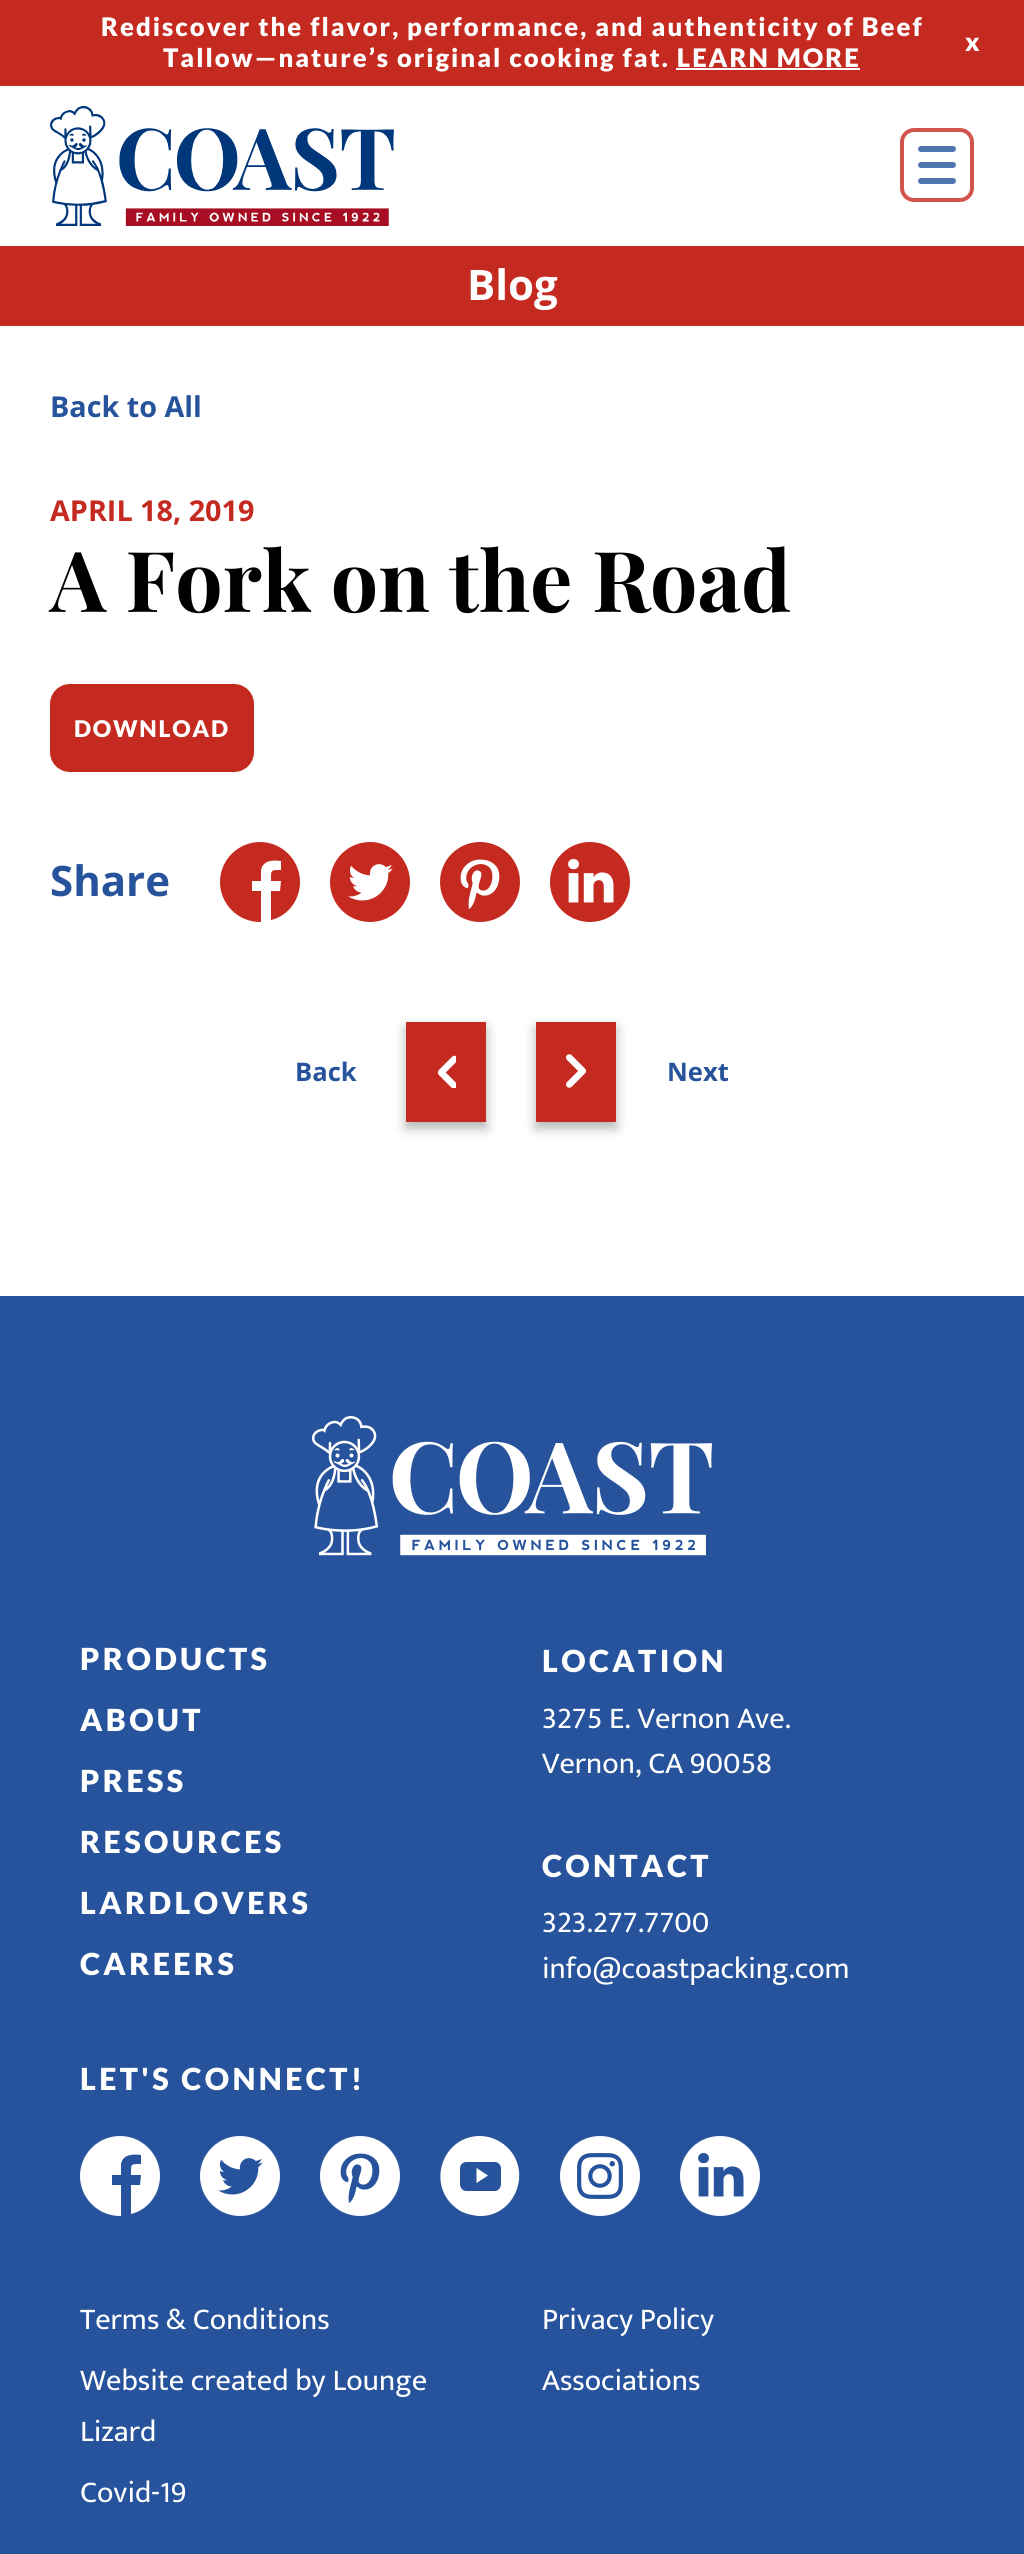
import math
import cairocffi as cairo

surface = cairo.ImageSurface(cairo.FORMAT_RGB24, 1024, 2554)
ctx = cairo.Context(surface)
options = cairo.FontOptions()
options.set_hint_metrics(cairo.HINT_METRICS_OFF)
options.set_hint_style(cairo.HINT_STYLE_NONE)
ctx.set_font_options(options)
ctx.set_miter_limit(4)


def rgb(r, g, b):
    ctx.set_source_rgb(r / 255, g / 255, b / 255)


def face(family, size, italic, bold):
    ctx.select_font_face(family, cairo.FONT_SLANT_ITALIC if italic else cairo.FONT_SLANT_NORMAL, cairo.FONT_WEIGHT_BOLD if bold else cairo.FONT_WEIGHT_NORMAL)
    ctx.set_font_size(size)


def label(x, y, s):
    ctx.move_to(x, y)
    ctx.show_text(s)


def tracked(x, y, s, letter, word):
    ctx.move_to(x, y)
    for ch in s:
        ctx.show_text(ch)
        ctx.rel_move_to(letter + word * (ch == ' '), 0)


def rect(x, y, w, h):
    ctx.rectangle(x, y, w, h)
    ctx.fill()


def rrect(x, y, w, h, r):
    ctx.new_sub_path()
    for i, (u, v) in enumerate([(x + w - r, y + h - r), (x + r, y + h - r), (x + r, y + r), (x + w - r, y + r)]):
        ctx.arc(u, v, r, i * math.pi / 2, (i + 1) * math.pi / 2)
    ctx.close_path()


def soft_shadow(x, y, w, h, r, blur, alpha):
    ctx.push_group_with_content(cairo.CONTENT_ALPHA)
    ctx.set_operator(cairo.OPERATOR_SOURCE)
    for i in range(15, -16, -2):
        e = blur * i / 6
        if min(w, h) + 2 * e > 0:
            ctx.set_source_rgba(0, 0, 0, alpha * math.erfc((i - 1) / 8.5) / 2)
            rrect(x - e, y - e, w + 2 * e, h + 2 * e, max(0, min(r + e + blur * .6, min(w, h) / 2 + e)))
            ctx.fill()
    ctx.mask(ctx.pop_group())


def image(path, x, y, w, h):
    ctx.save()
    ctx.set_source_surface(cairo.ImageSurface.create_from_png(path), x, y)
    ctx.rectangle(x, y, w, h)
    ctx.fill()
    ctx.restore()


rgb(255, 255, 255)
ctx.paint()
rgb(197, 42, 33)
rect(0, 0, 1024, 86)
face('Lato Black', 25.6, 0, 0)
rgb(255, 255, 255)
tracked(101, 36, 'Rediscover the flavor, performance, and authenticity of Beef', 2, 0)
tracked(163, 67, 'Tallow—nature’s original cooking fat. LEARN MORE', 2, 0)
rect(676, 68, 184, 2)
tracked(965, 51, 'x', 2, 0)
image('image0.png', 50, 106, 344, 120)
rrect(902, 130, 70, 70, 12)
rgb(209, 85, 77)
ctx.set_line_width(4)
ctx.stroke()
rgb(81, 117, 176)
rrect(918, 146, 38, 6, 3)
ctx.fill()
rrect(918, 162, 38, 6, 3)
ctx.fill()
rrect(918, 178, 38, 6, 3)
ctx.fill()
rgb(197, 42, 33)
rect(0, 246, 1024, 80)
face('Open Sans', 42, 0, 1)
rgb(255, 255, 255)
label(467, 300, 'Blog')
face('Open Sans', 28.75, 0, 1)
rgb(38, 83, 156)
label(50, 417, 'Back to All')
rgb(197, 42, 33)
label(50, 521, 'APRIL 18, 2019')
face('Playfair Display', 84, 0, 1)
rgb(0, 0, 0)
label(50, 612, 'A Fork on the Road')
rgb(197, 42, 33)
rrect(53, 687, 198, 82, 17)
ctx.fill_preserve()
ctx.set_line_width(6)
ctx.stroke()
face('Lato Black', 23, 0, 0)
rgb(255, 255, 255)
tracked(74, 737, 'DOWNLOAD', 1.75, 0)
face('Open Sans', 42, 0, 1)
rgb(38, 83, 156)
label(50, 896, 'Share')
rgb(197, 42, 33)
ctx.new_path()
ctx.move_to(300, 882)
ctx.curve_to(300, 860, 282, 842, 260, 842)
ctx.curve_to(238, 842, 220, 860, 220, 882)
ctx.curve_to(220, 904, 238, 922, 260, 922)
ctx.line_to(261, 922)
ctx.line_to(261, 891)
ctx.line_to(252, 891)
ctx.line_to(252, 881)
ctx.line_to(261, 881)
ctx.line_to(261, 870)
ctx.curve_to(263, 860, 273, 860, 281, 861)
ctx.line_to(281, 870)
ctx.curve_to(270, 870, 271, 870, 271, 881)
ctx.line_to(281, 881)
ctx.line_to(280, 891)
ctx.line_to(271, 891)
ctx.line_to(271, 920)
ctx.curve_to(288, 916, 300, 900, 300, 882)
ctx.close_path()
ctx.fill()
image('image1.png', 330, 842, 80, 80)
image('image2.png', 440, 842, 80, 80)
image('image3.png', 550, 842, 80, 80)
face('Open Sans', 25.6, 0, 1)
rgb(38, 83, 156)
label(295, 1081, 'Back')
rgb(0, 0, 0)
soft_shadow(406, 1028, 80, 100, 0, 6, 0.3)
rgb(197, 42, 33)
rect(406, 1022, 80, 100)
image('image4.png', 437, 1055, 19, 33)
rgb(0, 0, 0)
soft_shadow(536, 1028, 80, 100, 0, 6, 0.3)
rgb(197, 42, 33)
rect(536, 1022, 80, 100)
image('image5.png', 566, 1054, 20, 34)
rgb(38, 83, 156)
label(667, 1081, 'Next')
rect(0, 1296, 1024, 1258)
image('image6.png', 312, 1416, 400, 140)
face('Lato Black', 30.4, 0, 0)
rgb(255, 255, 255)
tracked(80, 1670, 'PRODUCTS', 3.4, 0)
tracked(80, 1731, 'ABOUT', 3.4, 0)
tracked(80, 1792, 'PRESS', 3.4, 0)
tracked(80, 1853, 'RESOURCES', 3.4, 0)
tracked(80, 1914, 'LARDLOVERS', 3.4, 0)
tracked(80, 1975, 'CAREERS', 3.4, 0)
tracked(542, 1672, 'LOCATION', 3.4, 0)
face('Mukta', 30.4, 0, 0)
label(542, 1728, '3275 E. Vernon Ave.')
label(542, 1773, 'Vernon, CA 90058')
face('Lato Black', 30.4, 0, 0)
tracked(542, 1877, 'CONTACT', 3.4, 0)
face('Mukta', 30.4, 0, 0)
label(542, 1932, '323.277.7700')
label(542, 1978, 'info@coastpacking.com')
face('Lato Black', 30.4, 0, 0)
tracked(80, 2090, 'LET\'S CONNECT!', 3.4, 0)
ctx.new_path()
ctx.move_to(160, 2176)
ctx.curve_to(160, 2154, 142, 2136, 120, 2136)
ctx.curve_to(98, 2136, 80, 2154, 80, 2176)
ctx.curve_to(80, 2198, 98, 2216, 120, 2216)
ctx.line_to(121, 2216)
ctx.line_to(121, 2185)
ctx.line_to(112, 2185)
ctx.line_to(112, 2175)
ctx.line_to(121, 2175)
ctx.line_to(121, 2164)
ctx.curve_to(123, 2154, 133, 2154, 141, 2155)
ctx.line_to(141, 2164)
ctx.curve_to(130, 2164, 131, 2164, 131, 2175)
ctx.line_to(141, 2175)
ctx.line_to(140, 2185)
ctx.line_to(131, 2185)
ctx.line_to(131, 2214)
ctx.curve_to(148, 2210, 160, 2194, 160, 2176)
ctx.close_path()
ctx.fill()
image('image7.png', 200, 2136, 80, 80)
image('image8.png', 320, 2136, 80, 80)
ctx.new_path()
ctx.move_to(476.5, 2183)
ctx.line_to(488, 2175.5)
ctx.line_to(476.5, 2168)
ctx.close_path()
ctx.fill()
ctx.new_path()
ctx.move_to(480, 2136)
ctx.curve_to(442, 2136, 426, 2185, 456, 2208)
ctx.curve_to(462, 2213, 470, 2215, 478, 2216)
ctx.curve_to(517, 2218, 535, 2166, 502, 2143)
ctx.curve_to(496, 2139, 488, 2136, 480, 2136)
ctx.move_to(501, 2168)
ctx.line_to(501, 2184)
ctx.curve_to(501, 2188, 498, 2191, 495, 2191)
ctx.line_to(466, 2191)
ctx.curve_to(463, 2191, 460, 2188, 460, 2184)
ctx.line_to(460, 2168)
ctx.curve_to(460, 2165, 463, 2162, 466, 2162)
ctx.line_to(495, 2162)
ctx.curve_to(498, 2162, 501, 2165, 501, 2168)
ctx.close_path()
ctx.fill()
image('image9.png', 560, 2136, 80, 80)
image('image10.png', 680, 2136, 80, 80)
face('Mukta', 30.4, 0, 0)
label(80, 2329, 'Terms & Conditions')
label(542, 2329, 'Privacy Policy')
label(80, 2390, 'Website created by Lounge')
label(80, 2441, 'Lizard')
label(542, 2390, 'Associations')
label(80, 2502, 'Covid-19')
surface.write_to_png('render.png')
